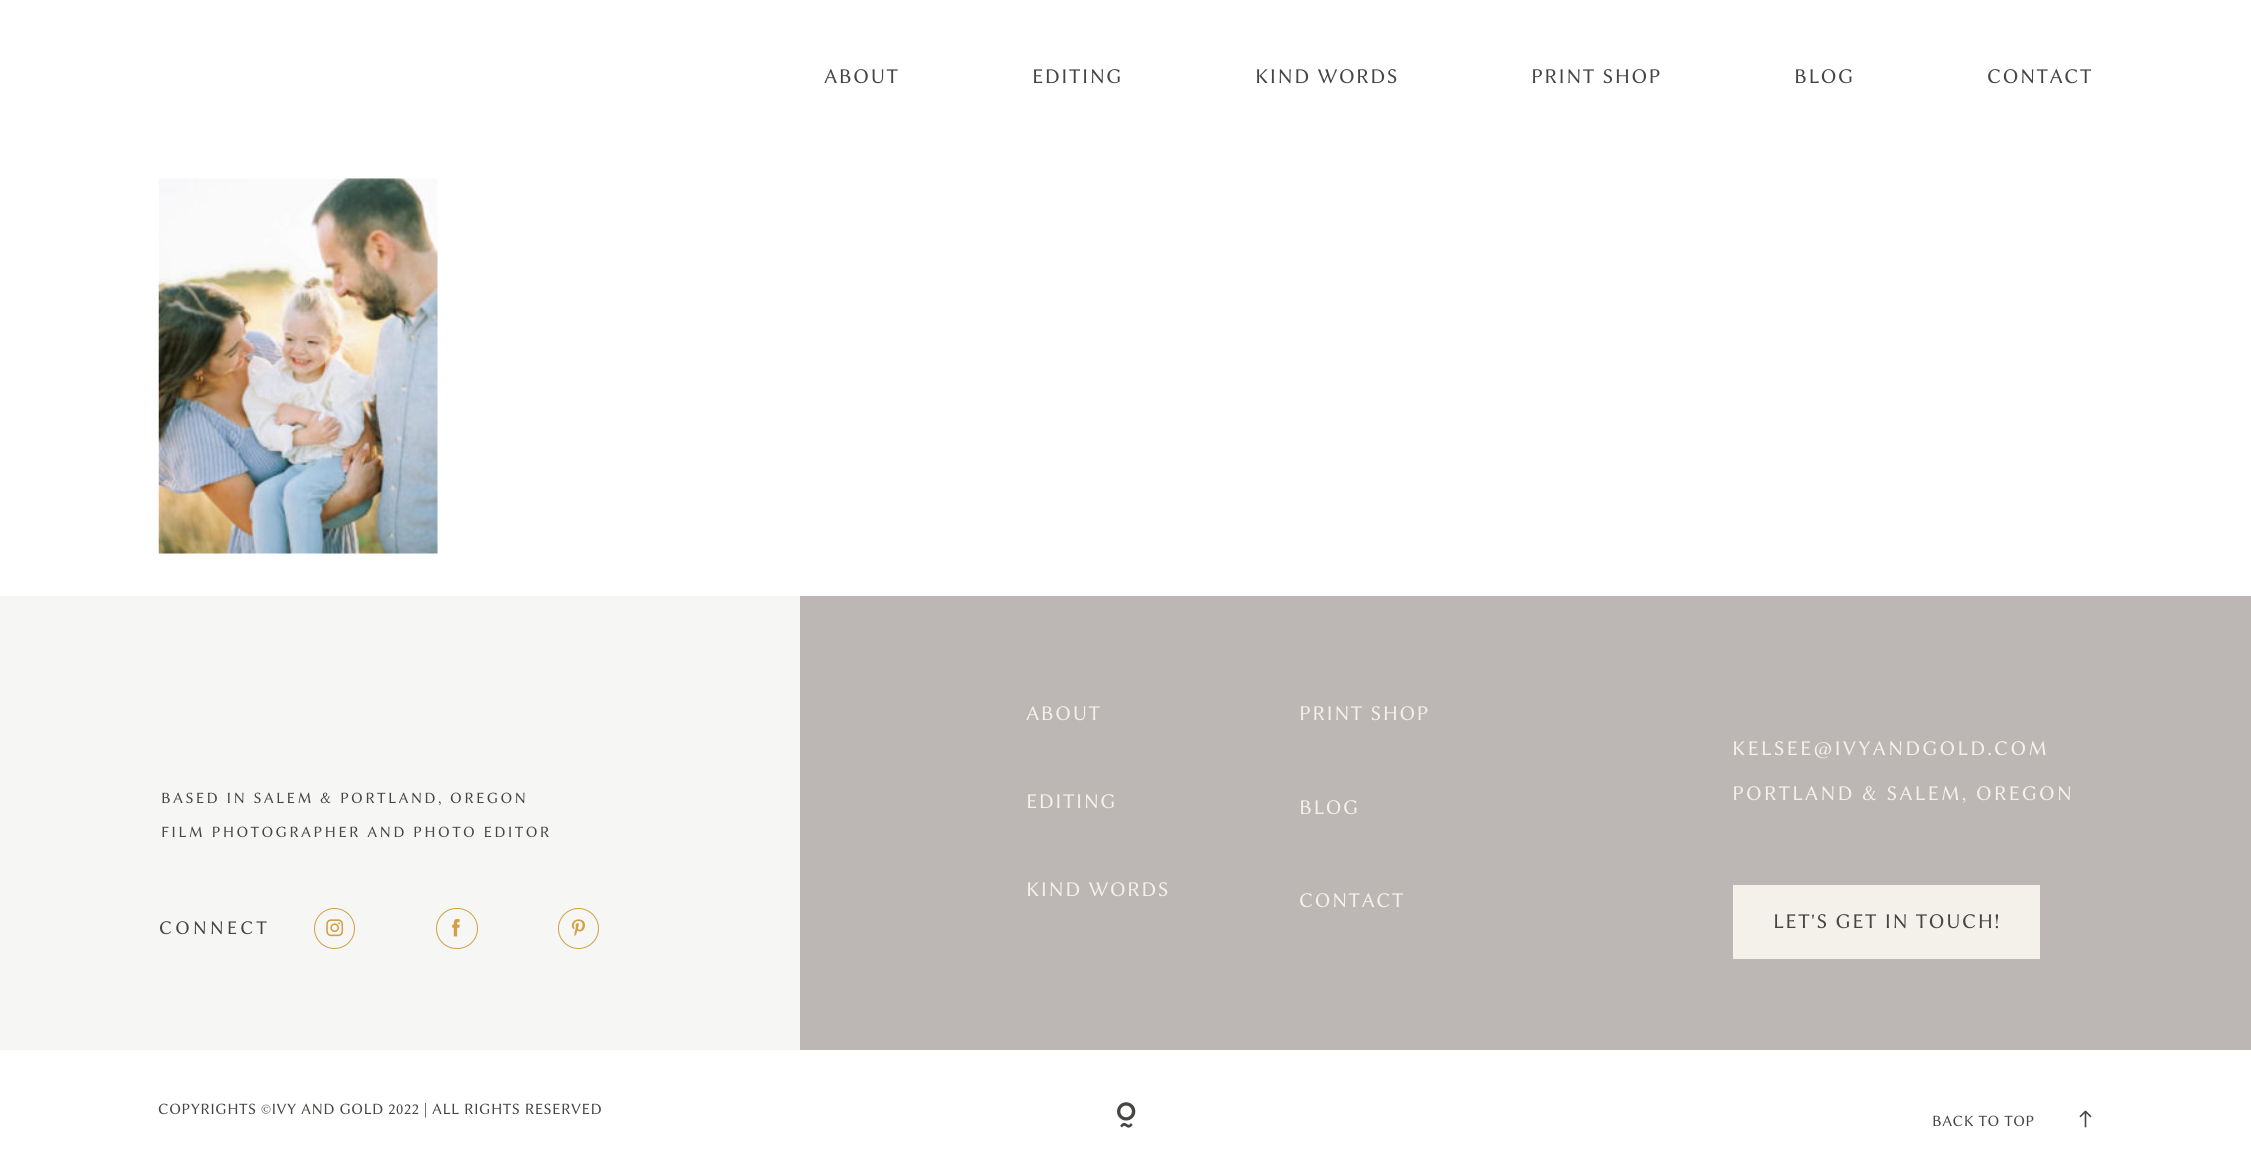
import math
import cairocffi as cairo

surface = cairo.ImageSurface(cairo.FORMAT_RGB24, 2251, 1166)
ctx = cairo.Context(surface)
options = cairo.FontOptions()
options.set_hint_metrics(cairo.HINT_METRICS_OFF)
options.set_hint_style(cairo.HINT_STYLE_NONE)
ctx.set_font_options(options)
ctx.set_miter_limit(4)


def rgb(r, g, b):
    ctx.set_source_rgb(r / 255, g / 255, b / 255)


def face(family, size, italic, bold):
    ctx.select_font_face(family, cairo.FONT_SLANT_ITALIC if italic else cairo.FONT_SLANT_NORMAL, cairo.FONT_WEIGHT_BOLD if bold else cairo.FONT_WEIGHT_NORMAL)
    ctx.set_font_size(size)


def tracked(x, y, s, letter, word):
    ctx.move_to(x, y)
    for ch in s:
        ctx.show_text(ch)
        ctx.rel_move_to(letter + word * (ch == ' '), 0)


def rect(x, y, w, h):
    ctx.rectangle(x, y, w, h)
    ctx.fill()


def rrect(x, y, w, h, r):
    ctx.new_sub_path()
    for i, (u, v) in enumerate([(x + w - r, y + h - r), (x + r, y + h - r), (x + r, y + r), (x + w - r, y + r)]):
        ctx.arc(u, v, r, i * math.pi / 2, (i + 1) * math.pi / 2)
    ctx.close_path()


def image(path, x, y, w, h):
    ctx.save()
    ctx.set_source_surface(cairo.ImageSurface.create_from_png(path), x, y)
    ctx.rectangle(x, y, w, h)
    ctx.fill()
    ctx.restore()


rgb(255, 255, 255)
ctx.paint()
face('Libertinus Sans', 21.1, 0, 0)
rgb(69, 69, 67)
tracked(824, 83, 'ABOUT', 1.5, 0)
tracked(1032, 83, 'EDITING', 1.5, 0)
tracked(1255, 83, 'KIND WORDS', 1.5, 0)
tracked(1531, 83, 'PRINT SHOP', 1.5, 0)
tracked(1794, 83, 'BLOG', 1.5, 0)
tracked(1987, 83, 'CONTACT', 1.5, 0)
image('image0.png', 158, 178, 280, 376)
rgb(246, 246, 244)
rect(0, 596, 800, 454)
rgb(188, 182, 181)
rect(800, 596, 1451, 454)
rgb(243, 241, 233)
tracked(1026, 720, 'ABOUT', 1.5, 0)
tracked(1026, 808, 'EDITING', 1.5, 0)
tracked(1026, 896, 'KIND WORDS', 1.5, 0)
tracked(1299, 720, 'PRINT SHOP', 1.5, 0)
tracked(1299, 814, 'BLOG', 1.5, 0)
tracked(1299, 907, 'CONTACT', 1.5, 0)
tracked(1732, 755, 'KELSEE@IVYANDGOLD.COM', 2.1, 0)
face('Libertinus Sans', 15.8, 0, 0)
rgb(69, 69, 67)
tracked(161, 803, 'BASED IN SALEM & PORTLAND, OREGON', 2.35, 0)
tracked(161, 837, 'FILM PHOTOGRAPHER AND PHOTO EDITOR', 2.35, 0)
face('Libertinus Sans', 21.1, 0, 0)
rgb(243, 241, 233)
tracked(1732, 800, 'PORTLAND & SALEM, OREGON', 2.1, 0)
face('Libertinus Sans', 19.5, 0, 0)
rgb(69, 69, 67)
tracked(159, 934, 'CONNECT', 3, 0)
ctx.new_path()
ctx.arc(334.5, 928.5, 20, 0, 2 * math.pi)
rgb(209, 160, 68)
ctx.set_line_width(1)
ctx.stroke()
image('image1.png', 326, 919, 18, 18)
rrect(436.5, 908.5, 41, 40, 20)
ctx.stroke()
image('image2.png', 452, 919, 8, 18)
ctx.arc(578.5, 928.5, 20, 0, 2 * math.pi)
ctx.stroke()
image('image3.png', 571, 919, 14, 18)
rgb(243, 241, 233)
rect(1733, 885, 307, 74)
face('Libertinus Sans', 21.1, 0, 0)
rgb(69, 69, 67)
tracked(1773, 928, 'LET\'S GET IN TOUCH!', 1.5, 0)
face('Libertinus Sans', 15.8, 0, 0)
tracked(158, 1114, 'COPYRIGHTS ©IVY AND GOLD 2022 | ALL RIGHTS RESERVED', 0.47, 0)
image('image4.png', 1117, 1102, 19, 26)
tracked(1932, 1126, 'BACK TO TOP', 0.47, 0)
image('image5.png', 2079, 1110, 13, 18)
surface.write_to_png('render.png')
